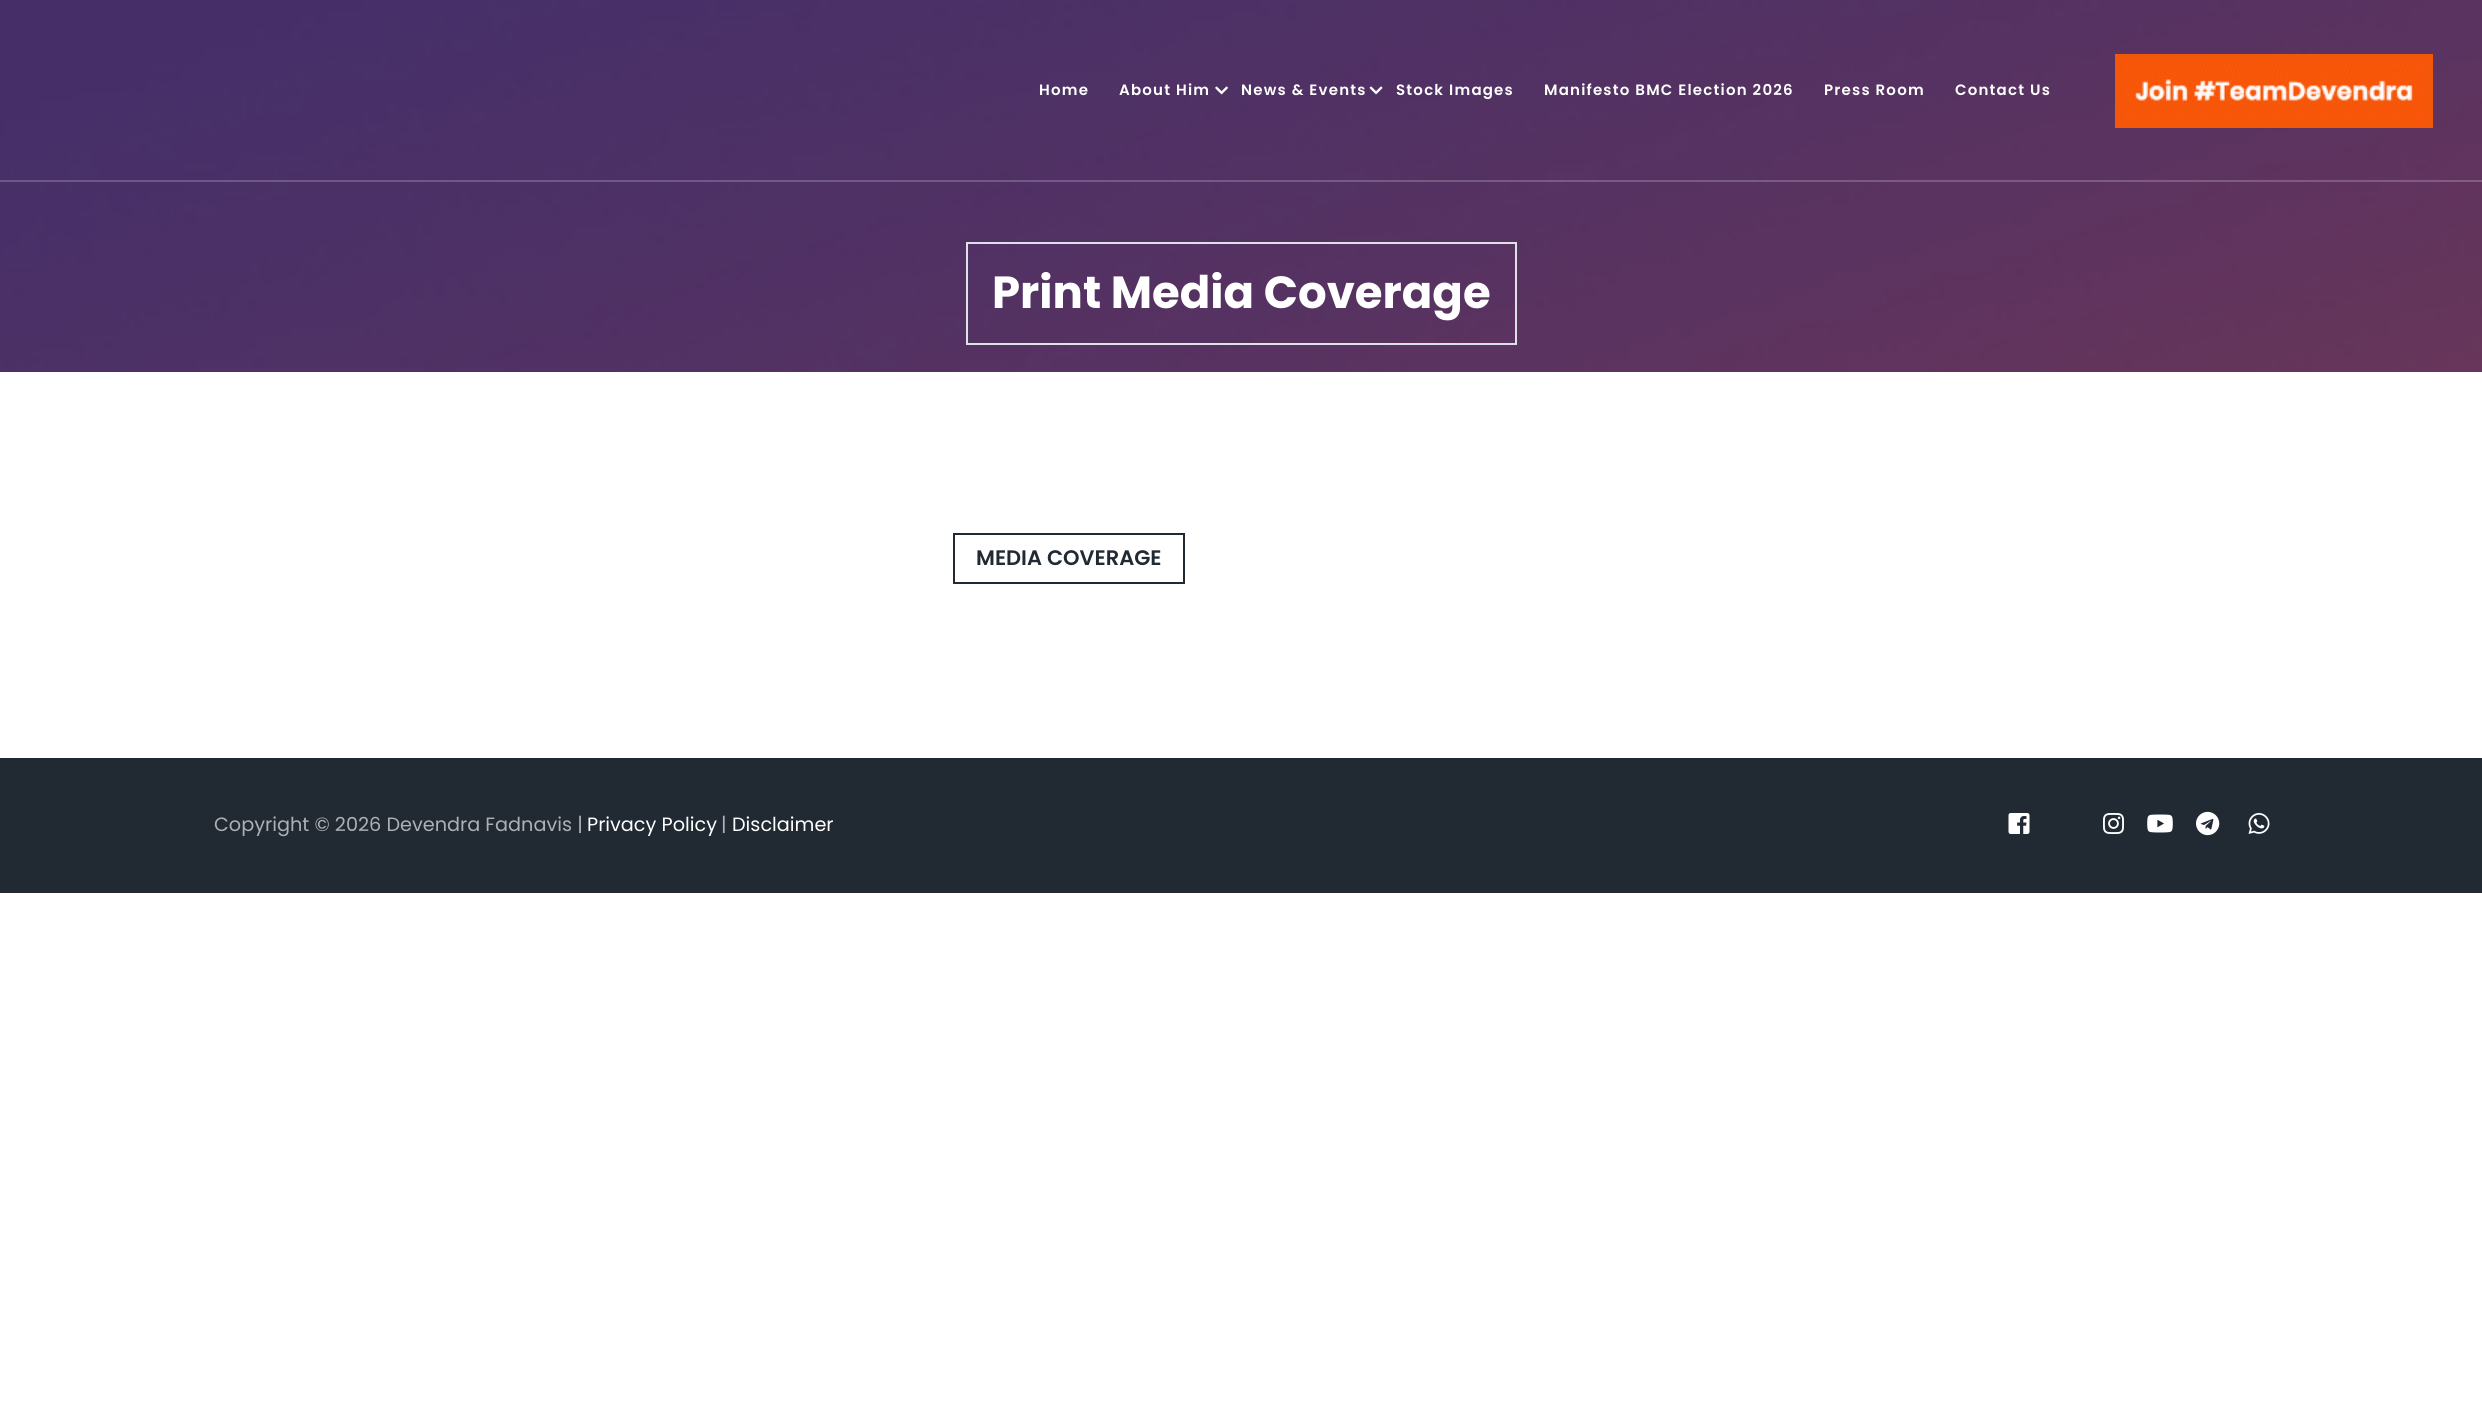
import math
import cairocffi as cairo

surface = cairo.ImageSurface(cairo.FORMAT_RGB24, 2482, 1409)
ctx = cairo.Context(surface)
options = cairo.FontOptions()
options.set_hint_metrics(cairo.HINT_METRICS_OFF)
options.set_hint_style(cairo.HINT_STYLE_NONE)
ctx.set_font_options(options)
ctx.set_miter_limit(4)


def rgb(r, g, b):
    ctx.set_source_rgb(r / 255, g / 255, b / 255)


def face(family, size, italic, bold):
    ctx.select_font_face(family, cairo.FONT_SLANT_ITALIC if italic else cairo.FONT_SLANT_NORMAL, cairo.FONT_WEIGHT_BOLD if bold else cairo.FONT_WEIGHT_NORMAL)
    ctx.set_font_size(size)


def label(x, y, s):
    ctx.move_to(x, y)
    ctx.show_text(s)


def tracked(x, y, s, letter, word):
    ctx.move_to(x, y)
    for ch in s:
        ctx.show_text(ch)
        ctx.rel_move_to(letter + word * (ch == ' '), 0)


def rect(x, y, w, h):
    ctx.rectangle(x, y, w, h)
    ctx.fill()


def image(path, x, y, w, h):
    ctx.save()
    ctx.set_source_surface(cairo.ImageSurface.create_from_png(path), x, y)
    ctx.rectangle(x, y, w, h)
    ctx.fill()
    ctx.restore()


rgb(255, 255, 255)
ctx.paint()
image('image3.png', 0, 0, 2482, 372)
ctx.set_source_rgba(1, 1, 1, 0.2)
rect(0, 180, 2482, 2)
face('Poppins SemiBold', 15, 0, 0)
rgb(255, 255, 255)
tracked(1039, 95, 'Home', 1.2, 0)
tracked(1119, 95, 'About Him', 1.2, 0)
image('image0.png', 1215, 86, 13, 9)
tracked(1241, 95, 'News & Events', 1.2, 0)
image('image1.png', 1369, 86, 14, 9)
tracked(1396, 95, 'Stock Images', 1.2, 0)
tracked(1544, 95, 'Manifesto BMC Election 2026', 1.2, 0)
tracked(1824, 95, 'Press Room', 1.2, 0)
tracked(1955, 95, 'Contact Us', 1.2, 0)
rgb(242, 87, 10)
rect(2115, 54, 318, 74)
image('image2.png', 2120, 59, 308, 64)
ctx.rectangle(967, 243, 549, 101)
rgb(222, 226, 230)
ctx.stroke()
face('Poppins', 45, 0, 1)
rgb(255, 255, 255)
label(992, 308, 'Print Media Coverage')
ctx.rectangle(954, 534, 230, 49)
rgb(33, 41, 51)
ctx.stroke()
face('Poppins SemiBold', 21, 0, 0)
label(976, 565, 'MEDIA COVERAGE')
rect(0, 758, 2482, 135)
face('Poppins', 19.25, 0, 0)
rgb(174, 177, 180)
label(214, 831, 'Copyright © 2026 Devendra Fadnavis |')
rgb(255, 255, 255)
label(587, 831, 'Privacy Policy')
rgb(174, 177, 180)
label(721, 831, '|')
rgb(255, 255, 255)
label(732, 831, 'Disclaimer')
image('image4.png', 2008, 813, 22, 21)
image('image5.png', 2103, 813, 21, 21)
image('image6.png', 2147, 814, 26, 19)
image('image7.png', 2196, 811, 24, 25)
image('image8.png', 2248, 813, 22, 21)
surface.write_to_png('render.png')
